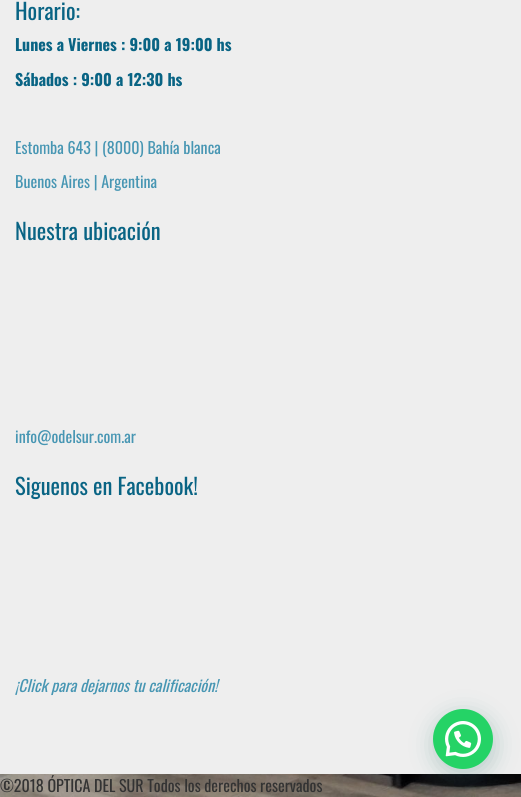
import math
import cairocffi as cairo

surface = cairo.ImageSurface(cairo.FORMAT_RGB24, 521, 797)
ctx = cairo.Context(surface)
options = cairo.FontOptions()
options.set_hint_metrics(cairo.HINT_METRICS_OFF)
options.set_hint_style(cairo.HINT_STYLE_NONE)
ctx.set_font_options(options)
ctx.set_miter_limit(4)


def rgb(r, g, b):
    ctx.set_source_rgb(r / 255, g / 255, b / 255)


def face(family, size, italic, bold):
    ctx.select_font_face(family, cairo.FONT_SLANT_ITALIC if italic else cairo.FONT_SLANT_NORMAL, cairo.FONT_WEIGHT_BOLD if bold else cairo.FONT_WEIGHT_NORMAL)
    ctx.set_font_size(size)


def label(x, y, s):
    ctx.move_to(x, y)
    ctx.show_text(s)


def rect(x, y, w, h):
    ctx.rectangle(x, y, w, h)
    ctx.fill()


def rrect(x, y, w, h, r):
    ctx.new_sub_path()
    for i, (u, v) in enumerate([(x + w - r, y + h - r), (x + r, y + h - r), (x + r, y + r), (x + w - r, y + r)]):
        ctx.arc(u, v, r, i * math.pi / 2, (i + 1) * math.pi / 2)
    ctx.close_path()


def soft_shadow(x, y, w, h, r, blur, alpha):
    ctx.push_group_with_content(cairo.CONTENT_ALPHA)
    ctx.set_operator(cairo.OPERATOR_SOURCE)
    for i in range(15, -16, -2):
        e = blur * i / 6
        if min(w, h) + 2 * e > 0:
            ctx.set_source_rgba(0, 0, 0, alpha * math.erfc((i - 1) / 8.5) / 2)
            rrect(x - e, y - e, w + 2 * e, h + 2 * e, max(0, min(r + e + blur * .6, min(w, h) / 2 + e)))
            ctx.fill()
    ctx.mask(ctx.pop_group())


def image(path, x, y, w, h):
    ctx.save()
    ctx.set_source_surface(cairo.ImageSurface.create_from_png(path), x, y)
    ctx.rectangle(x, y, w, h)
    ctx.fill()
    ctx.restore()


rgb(255, 255, 255)
ctx.paint()
image('image0.png', 0, 774, 521, 23)
rgb(238, 238, 238)
rect(0, 0, 521, 774)
face('Oswald', 22.5, 0, 0)
rgb(9, 100, 132)
label(15, 20, 'Horario:')
face('Oswald', 16, 0, 1)
label(15, 51, 'Lunes a Viernes : 9:00 a 19:00 hs')
label(15, 86, 'Sábados : 9:00 a 12:30 hs')
face('Oswald', 16, 0, 0)
rgb(71, 150, 179)
label(15, 154, 'Estomba 643 | (8000) Bahía blanca')
label(15, 188, 'Buenos Aires | Argentina')
face('Oswald', 22.5, 0, 0)
rgb(9, 100, 132)
label(15, 240, 'Nuestra ubicación')
face('Oswald', 16, 0, 0)
rgb(71, 150, 179)
label(15, 443, 'info@odelsur.com.ar')
face('Oswald', 22.5, 0, 0)
rgb(9, 100, 132)
label(15, 495, 'Siguenos en Facebook!')
face('Oswald', 16, 1, 0)
rgb(71, 150, 179)
label(15, 692, '¡Click para dejarnos tu calificación!')
face('Oswald', 16, 0, 0)
rgb(51, 51, 51)
label(0, 792, '©2018 ÓPTICA DEL SUR Todos los derechos reservados')
rgb(7, 94, 84)
soft_shadow(434, 715, 60, 60, 30, 12, 0.24)
rgb(37, 211, 102)
ctx.arc(463, 739, 30, 0, 2 * math.pi)
ctx.fill()
image('image1.png', 445, 721, 36, 36)
surface.write_to_png('render.png')
